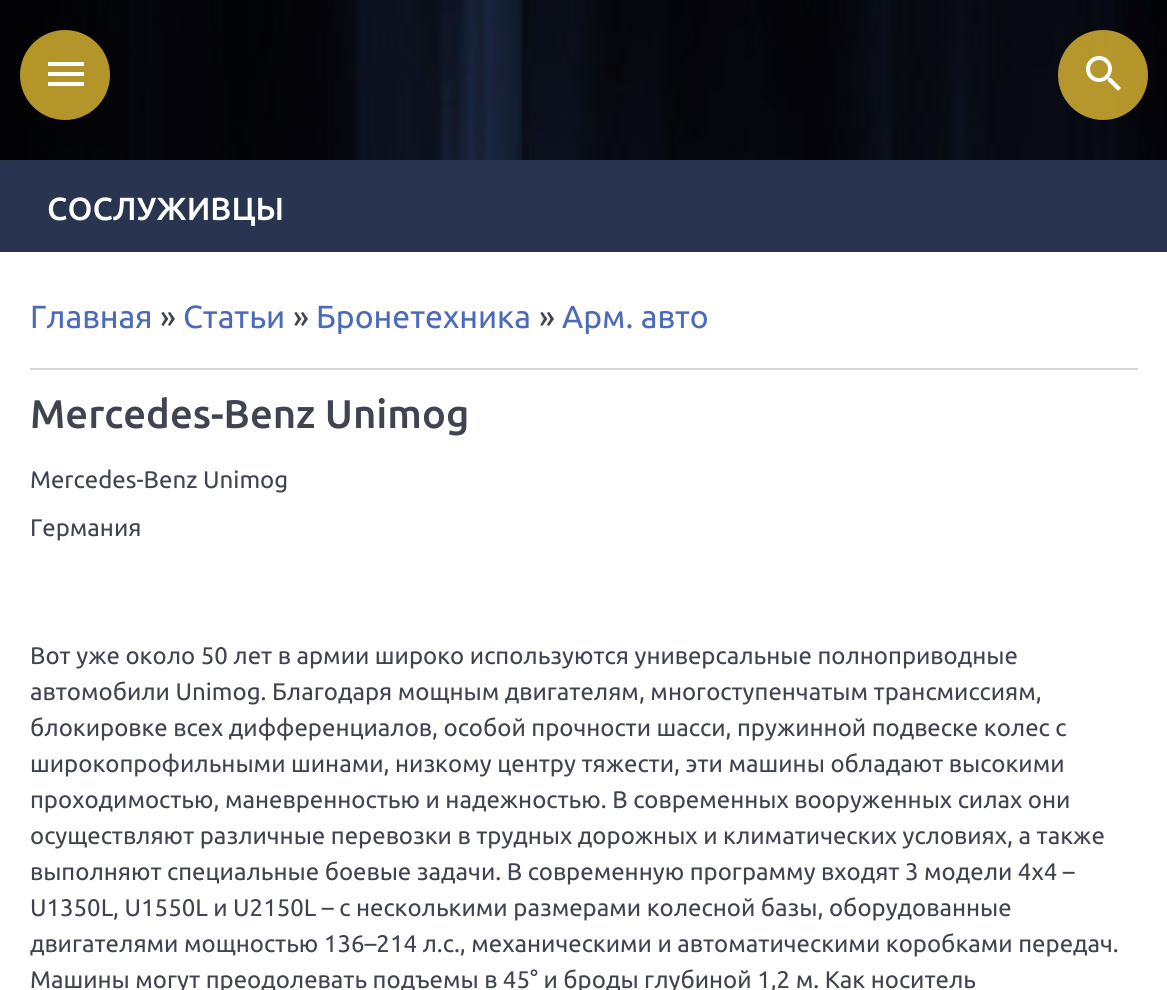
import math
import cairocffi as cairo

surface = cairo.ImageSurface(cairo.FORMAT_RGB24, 1167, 990)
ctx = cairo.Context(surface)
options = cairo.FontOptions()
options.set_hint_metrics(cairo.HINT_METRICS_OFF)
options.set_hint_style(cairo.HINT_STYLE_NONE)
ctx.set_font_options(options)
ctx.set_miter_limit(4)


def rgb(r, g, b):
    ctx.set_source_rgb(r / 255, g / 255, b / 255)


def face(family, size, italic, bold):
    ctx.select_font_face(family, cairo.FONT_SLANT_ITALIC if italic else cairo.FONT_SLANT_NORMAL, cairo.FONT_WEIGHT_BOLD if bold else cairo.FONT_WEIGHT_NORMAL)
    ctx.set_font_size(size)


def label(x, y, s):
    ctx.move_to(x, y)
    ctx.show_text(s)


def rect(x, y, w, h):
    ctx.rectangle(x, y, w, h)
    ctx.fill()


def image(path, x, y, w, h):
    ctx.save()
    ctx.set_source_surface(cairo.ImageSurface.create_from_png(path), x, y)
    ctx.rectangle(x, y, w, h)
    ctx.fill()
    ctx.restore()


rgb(255, 255, 255)
ctx.paint()
image('image0.png', 0, 0, 1167, 160)
ctx.set_source_rgba(1, 0.831, 0.22, 0.7)
ctx.arc(65, 75, 45, 0, 2 * math.pi)
ctx.fill()
rgb(255, 255, 255)
ctx.new_path()
ctx.move_to(48, 62)
ctx.line_to(84, 62)
ctx.line_to(84, 66)
ctx.line_to(48, 66)
ctx.close_path()
ctx.move_to(48, 76)
ctx.line_to(48, 72)
ctx.line_to(84, 72)
ctx.line_to(84, 76)
ctx.close_path()
ctx.move_to(48, 86)
ctx.line_to(48, 82)
ctx.line_to(84, 82)
ctx.line_to(84, 86)
ctx.close_path()
ctx.fill()
ctx.set_source_rgba(1, 0.831, 0.22, 0.7)
ctx.arc(1103, 75, 45, 0, 2 * math.pi)
ctx.fill()
image('image1.png', 1086, 56, 35, 35)
rgb(40, 52, 80)
rect(0, 160, 1167, 92)
face('Ubuntu Medium', 32, 0, 0)
rgb(255, 255, 255)
label(47, 220, 'СОСЛУЖИВЦЫ')
face('Ubuntu', 32, 0, 0)
rgb(74, 107, 184)
label(30, 328, 'Главная')
rgb(63, 68, 80)
label(160, 328, '»')
rgb(74, 107, 184)
label(183, 328, 'Статьи')
rgb(63, 68, 80)
label(293, 328, '»')
rgb(74, 107, 184)
label(316, 328, 'Бронетехника')
rgb(63, 68, 80)
label(539, 328, '»')
rgb(74, 107, 184)
label(562, 328, 'Арм. авто')
rgb(213, 213, 213)
rect(30, 368, 1108, 2)
face('Ubuntu Medium', 40, 0, 0)
rgb(63, 68, 80)
label(30, 428, 'Mercedes-Benz Unimog')
face('Ubuntu', 24, 0, 0)
label(30, 488, 'Mercedes-Benz Unimog')
label(30, 536, 'Германия')
label(30, 664, 'Вот уже около 50 лет в армии широко используются универсальные полноприводные')
label(30, 700, 'автомобили Unimog. Благодаря мощным двигателям, многоступенчатым трансмиссиям,')
label(30, 736, 'блокировке всех дифференциалов, особой прочности шасси, пружинной подвеске колес с')
label(30, 772, 'широкопрофильными шинами, низкому центру тяжести, эти машины обладают высокими')
label(30, 808, 'проходимостью, маневренностью и надежностью. В современных вооруженных силах они')
label(30, 844, 'осуществляют различные перевозки в трудных дорожных и климатических условиях, а также')
label(30, 880, 'выполняют специальные боевые задачи. В современную программу входят 3 модели 4х4 –')
label(30, 916, 'U1350L, U1550L и U2150L – с несколькими размерами колесной базы, оборудованные')
label(30, 952, 'двигателями мощностью 136–214 л.с., механическими и автоматическими коробками передач.')
label(30, 988, 'Машины могут преодолевать подъемы в 45° и броды глубиной 1,2 м. Как носитель')
surface.write_to_png('render.png')
